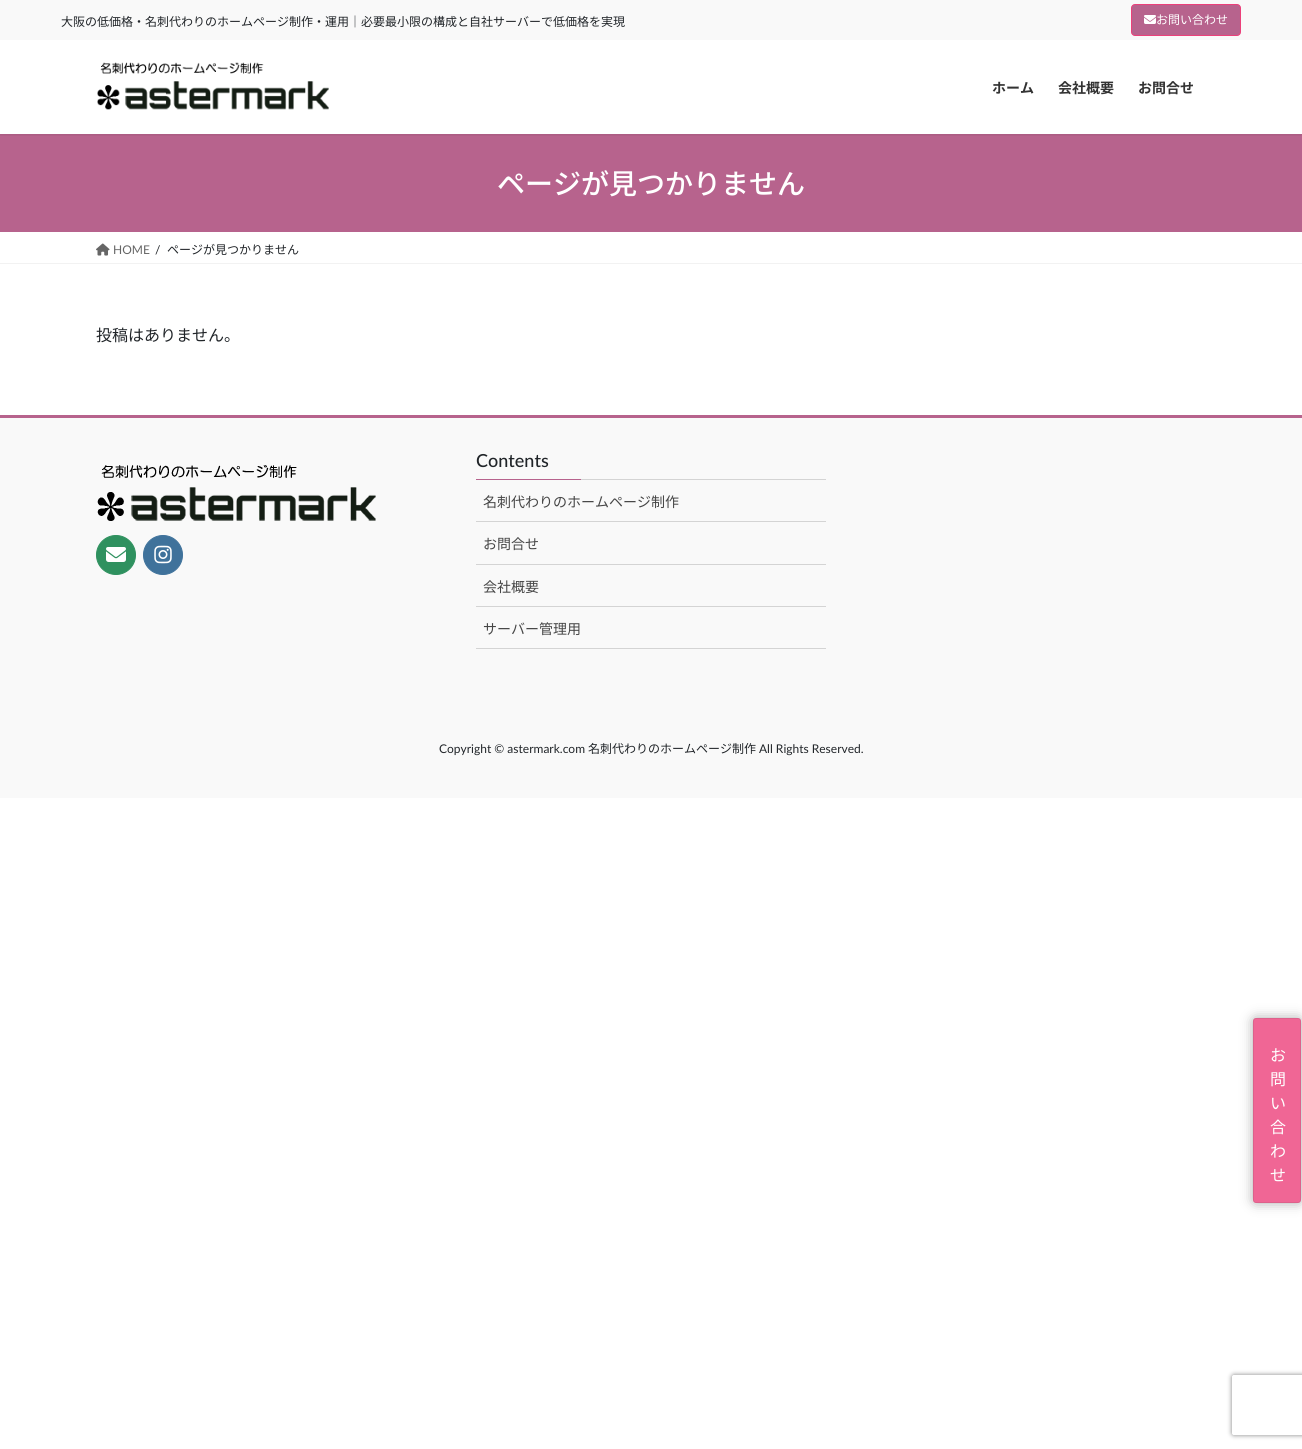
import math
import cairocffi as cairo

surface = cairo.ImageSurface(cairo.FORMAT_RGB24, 1302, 1449)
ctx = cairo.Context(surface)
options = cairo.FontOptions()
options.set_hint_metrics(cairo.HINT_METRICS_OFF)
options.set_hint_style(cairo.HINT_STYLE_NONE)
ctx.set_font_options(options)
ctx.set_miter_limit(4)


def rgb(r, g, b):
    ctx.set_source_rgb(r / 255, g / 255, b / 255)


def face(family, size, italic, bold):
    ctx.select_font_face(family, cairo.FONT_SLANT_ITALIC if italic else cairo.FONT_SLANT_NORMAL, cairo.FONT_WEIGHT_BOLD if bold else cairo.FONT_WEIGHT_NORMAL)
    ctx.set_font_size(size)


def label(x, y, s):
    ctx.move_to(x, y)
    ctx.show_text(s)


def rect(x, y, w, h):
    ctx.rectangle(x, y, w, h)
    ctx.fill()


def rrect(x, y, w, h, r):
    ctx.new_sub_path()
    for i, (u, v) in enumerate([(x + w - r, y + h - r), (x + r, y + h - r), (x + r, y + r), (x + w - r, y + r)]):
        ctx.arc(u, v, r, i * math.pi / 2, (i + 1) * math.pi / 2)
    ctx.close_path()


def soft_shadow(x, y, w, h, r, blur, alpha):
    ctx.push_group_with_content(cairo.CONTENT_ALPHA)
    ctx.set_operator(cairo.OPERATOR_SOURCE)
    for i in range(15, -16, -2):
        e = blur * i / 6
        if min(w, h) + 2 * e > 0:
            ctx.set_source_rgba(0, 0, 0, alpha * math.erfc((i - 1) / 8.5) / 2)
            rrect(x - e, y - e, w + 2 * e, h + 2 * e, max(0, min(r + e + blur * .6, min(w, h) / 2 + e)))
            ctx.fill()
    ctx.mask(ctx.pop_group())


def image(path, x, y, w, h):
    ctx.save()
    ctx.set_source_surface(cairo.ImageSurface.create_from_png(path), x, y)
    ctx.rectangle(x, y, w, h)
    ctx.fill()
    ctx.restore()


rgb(255, 255, 255)
ctx.paint()
rgb(249, 249, 249)
rect(0, 0, 1302, 40)
face('Noto Sans JP', 12, 0, 0)
rgb(33, 37, 41)
label(61, 26, '大阪の低価格・名刺代わりのホームページ制作・運用｜必要最小限の構成と自社サーバーで低価格を実現')
rgb(183, 99, 141)
rrect(1131.5, 4.5, 109, 31, 3.5)
ctx.fill_preserve()
rgb(236, 64, 122)
ctx.set_line_width(1)
ctx.stroke()
image('image0.png', 1144, 15, 12, 9)
rgb(255, 255, 255)
label(1156, 24, 'お問い合わせ')
rgb(183, 99, 141)
rect(0, 134, 1302, 98)
ctx.save()
ctx.rectangle(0, 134, 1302, 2)
ctx.clip()
rgb(0, 0, 0)
soft_shadow(0, 41, 1302, 94, 0, 1.5, 0.1)
ctx.restore()
image('image1.png', 97, 62, 232, 48)
face('Noto Sans JP', 14, 0, 1)
rgb(51, 51, 51)
label(992, 93, 'ホーム')
label(1058, 93, '会社概要')
label(1138, 93, 'お問合せ')
face('Noto Sans JP Medium', 28, 0, 0)
rgb(255, 255, 255)
label(497, 194, 'ページが見つかりません')
rgb(242, 242, 242)
rect(0, 263, 1302, 1)
image('image2.png', 96, 243, 14, 13)
face('Lato', 12, 0, 0)
rgb(102, 102, 102)
label(113, 254, 'HOME')
rgb(33, 37, 41)
label(155, 254, '/')
face('Noto Sans JP', 12, 0, 0)
label(167, 254, 'ページが見つかりません')
face('Noto Sans JP', 16, 0, 0)
label(96, 341, '投稿はありません。')
rgb(249, 249, 249)
rect(0, 418, 1302, 380)
rgb(183, 99, 141)
rect(0, 415, 1302, 3)
image('image3.png', 97, 465, 279, 56)
rgb(47, 145, 95)
ctx.arc(116, 555, 19.5, 0, 2 * math.pi)
ctx.fill_preserve()
ctx.stroke()
image('image4.png', 106, 547, 20, 15)
rgb(63, 114, 155)
ctx.arc(163, 555, 19.5, 0, 2 * math.pi)
ctx.fill_preserve()
ctx.stroke()
image('image5.png', 154, 545, 18, 19)
rgb(212, 212, 212)
rect(581, 479, 245, 1)
face('Lato Medium', 18, 0, 0)
rgb(33, 37, 41)
label(476, 467, 'Contents')
rgb(183, 99, 141)
rect(476, 479, 105, 1)
rgb(212, 212, 212)
rect(476, 521, 350, 1)
face('Noto Sans JP', 14, 0, 0)
rgb(70, 70, 70)
label(483, 507, '名刺代わりのホームページ制作')
rgb(212, 212, 212)
rect(476, 564, 350, 1)
rgb(70, 70, 70)
label(483, 549, 'お問合せ')
rgb(212, 212, 212)
rect(476, 606, 350, 1)
rgb(70, 70, 70)
label(483, 592, '会社概要')
rgb(212, 212, 212)
rect(476, 648, 350, 1)
rgb(70, 70, 70)
label(483, 634, 'サーバー管理用')
face('Lato', 12, 0, 0)
rgb(33, 37, 41)
label(439, 753, 'Copyright © astermark.com')
face('Noto Sans JP', 12, 0, 0)
label(588, 753, '名刺代わりのホームページ制作')
face('Lato', 12, 0, 0)
label(759, 753, 'All Rights Reserved.')
rgb(173, 173, 173)
soft_shadow(1253, 1018, 48, 185, 3, 6, 1)
rgb(240, 102, 149)
rrect(1253, 1018, 48, 185, 3)
ctx.fill()
rrect(1253.5, 1018.5, 47, 184, 2.5)
ctx.set_source_rgba(0.2, 0.2, 0.2, 0.1)
ctx.stroke()
face('Noto Sans JP', 16, 0, 0)
rgb(255, 255, 255)
label(1270, 1061, 'お')
label(1270, 1085, '問')
label(1270, 1109, 'い')
label(1270, 1133, '合')
label(1270, 1157, 'わ')
label(1270, 1181, 'せ')
ctx.save()
ctx.set_fill_rule(cairo.FILL_RULE_EVEN_ODD)
ctx.new_path()
ctx.move_to(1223, 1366)
ctx.line_to(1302, 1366)
ctx.line_to(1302, 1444)
ctx.line_to(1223, 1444)
ctx.close_path()
ctx.move_to(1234, 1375)
ctx.line_to(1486, 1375)
ctx.curve_to(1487, 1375, 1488, 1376, 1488, 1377)
ctx.line_to(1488, 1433)
ctx.curve_to(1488, 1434, 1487, 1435, 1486, 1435)
ctx.line_to(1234, 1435)
ctx.curve_to(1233, 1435, 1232, 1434, 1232, 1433)
ctx.line_to(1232, 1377)
ctx.curve_to(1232, 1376, 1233, 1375, 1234, 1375)
ctx.close_path()
ctx.clip()
rgb(128, 128, 128)
soft_shadow(1232, 1375, 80, 60, 2, 2.5, 1)
ctx.restore()
surface.write_to_png('render.png')
